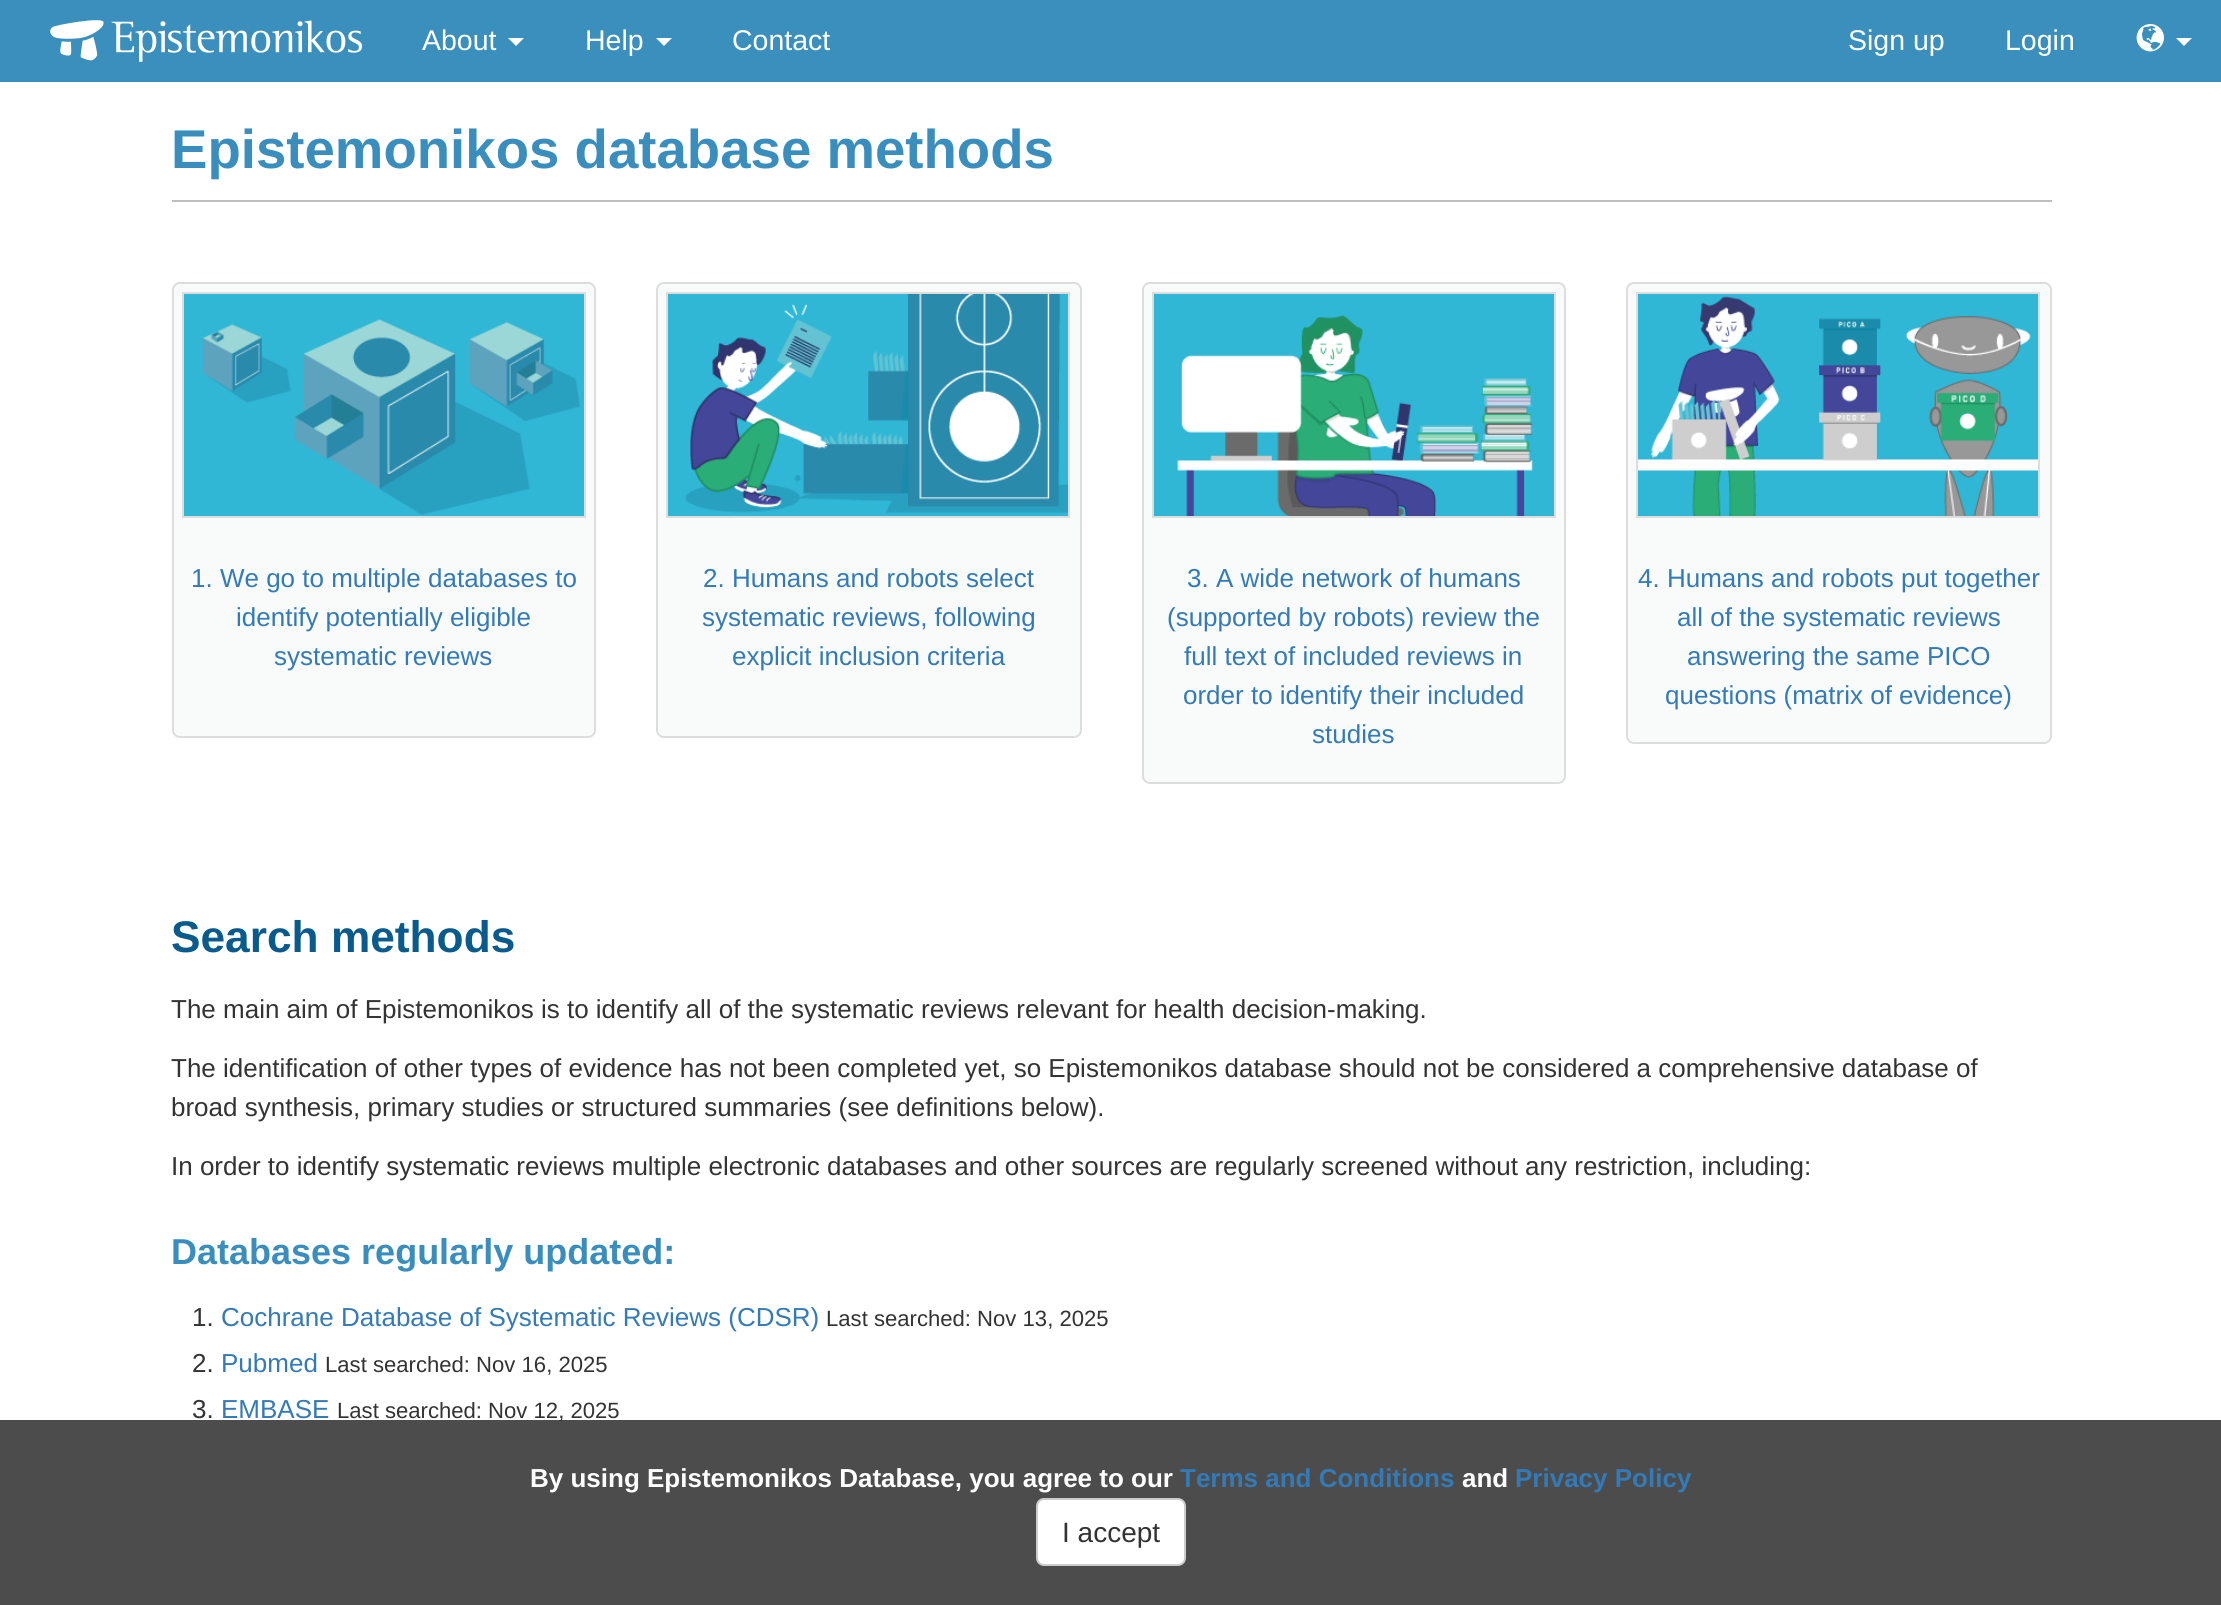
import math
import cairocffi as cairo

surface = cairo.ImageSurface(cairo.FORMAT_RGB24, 2221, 1605)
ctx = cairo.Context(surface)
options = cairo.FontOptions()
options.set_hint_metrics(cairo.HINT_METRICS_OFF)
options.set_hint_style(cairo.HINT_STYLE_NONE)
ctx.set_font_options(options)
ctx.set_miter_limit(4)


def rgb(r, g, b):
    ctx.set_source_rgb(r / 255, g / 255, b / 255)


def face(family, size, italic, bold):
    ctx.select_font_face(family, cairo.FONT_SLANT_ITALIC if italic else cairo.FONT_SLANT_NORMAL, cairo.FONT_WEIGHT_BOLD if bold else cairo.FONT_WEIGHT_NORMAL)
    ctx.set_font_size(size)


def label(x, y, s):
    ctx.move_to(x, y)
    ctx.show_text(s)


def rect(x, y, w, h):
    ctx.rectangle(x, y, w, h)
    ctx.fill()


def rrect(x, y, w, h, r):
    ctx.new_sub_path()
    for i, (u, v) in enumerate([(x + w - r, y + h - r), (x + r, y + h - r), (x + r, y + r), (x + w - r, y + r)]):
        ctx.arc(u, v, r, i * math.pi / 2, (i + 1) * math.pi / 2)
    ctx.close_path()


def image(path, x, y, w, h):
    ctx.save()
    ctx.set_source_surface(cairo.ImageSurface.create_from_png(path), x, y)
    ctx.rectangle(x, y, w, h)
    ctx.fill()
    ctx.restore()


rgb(255, 255, 255)
ctx.paint()
rgb(58, 143, 189)
rect(0, 0, 2221, 82)
image('image0.png', 50, 20, 312, 42)
face('Liberation Sans', 28.5, 0, 0)
rgb(255, 255, 255)
label(422, 50, 'About')
ctx.new_path()
ctx.move_to(508, 38)
ctx.line_to(524, 38)
ctx.line_to(516, 46)
ctx.close_path()
ctx.fill()
label(585, 50, 'Help')
ctx.new_path()
ctx.move_to(656, 38)
ctx.line_to(672, 38)
ctx.line_to(664, 46)
ctx.close_path()
ctx.fill()
label(732, 50, 'Contact')
label(1848, 50, 'Sign up')
label(2005, 50, 'Login')
image('image1.png', 2136, 24, 28, 28)
ctx.new_path()
ctx.move_to(2176, 38)
ctx.line_to(2192, 38)
ctx.line_to(2184, 46)
ctx.close_path()
ctx.fill()
rgb(191, 191, 191)
rect(172, 200, 1880, 2)
face('Liberation Sans', 54.6, 0, 1)
rgb(58, 142, 190)
label(171, 168, 'Epistemonikos database methods')
rgb(249, 250, 250)
rrect(173, 283, 422, 454, 7)
ctx.fill_preserve()
rgb(221, 221, 221)
ctx.stroke()
ctx.rectangle(183, 293, 402, 224)
ctx.stroke()
image('image2.png', 184, 294, 400, 222)
face('Liberation Sans', 26, 0, 0)
rgb(51, 122, 183)
label(191, 587, '1. We go to multiple databases to')
label(236, 626, 'identify potentially eligible')
label(274, 665, 'systematic reviews')
rgb(249, 250, 250)
rrect(657, 283, 424, 454, 7)
ctx.fill_preserve()
rgb(221, 221, 221)
ctx.stroke()
ctx.rectangle(667, 293, 402, 224)
ctx.stroke()
image('image3.png', 668, 294, 400, 222)
rgb(51, 122, 183)
label(703, 587, '2. Humans and robots select')
label(702, 626, 'systematic reviews, following')
label(732, 665, 'explicit inclusion criteria')
rgb(249, 250, 250)
rrect(1143, 283, 422, 500, 7)
ctx.fill_preserve()
rgb(221, 221, 221)
ctx.stroke()
ctx.rectangle(1153, 293, 402, 224)
ctx.stroke()
image('image4.png', 1154, 294, 400, 222)
rgb(51, 122, 183)
label(1187, 587, '3. A wide network of humans')
label(1167, 626, '(supported by robots) review the')
label(1184, 665, 'full text of included reviews in')
label(1183, 704, 'order to identify their included')
label(1312, 743, 'studies')
rgb(249, 250, 250)
rrect(1627, 283, 424, 460, 7)
ctx.fill_preserve()
rgb(221, 221, 221)
ctx.stroke()
ctx.rectangle(1637, 293, 402, 224)
ctx.stroke()
image('image5.png', 1638, 294, 400, 222)
rgb(51, 122, 183)
label(1638, 587, '4. Humans and robots put together')
label(1677, 626, 'all of the systematic reviews')
label(1687, 665, 'answering the same PICO')
label(1665, 704, 'questions (matrix of evidence)')
face('Liberation Sans', 44.25, 0, 1)
rgb(8, 91, 140)
label(171, 952, 'Search methods')
face('Liberation Sans', 26, 0, 0)
rgb(51, 51, 51)
label(171, 1018, 'The main aim of Epistemonikos is to identify all of the systematic reviews relevant for health decision-making.')
label(171, 1077, 'The identification of other types of evidence has not been completed yet, so Epistemonikos database should not be considered a comprehensive database of')
label(171, 1116, 'broad synthesis, primary studies or structured summaries (see definitions below).')
label(171, 1175, 'In order to identify systematic reviews multiple electronic databases and other sources are regularly screened without any restriction, including:')
face('Liberation Sans', 36, 0, 1)
rgb(58, 142, 190)
label(171, 1264, 'Databases regularly updated:')
face('Liberation Sans', 26, 0, 0)
rgb(51, 51, 51)
label(192, 1326, '1.')
rgb(51, 122, 183)
label(221, 1326, 'Cochrane Database of Systematic Reviews (CDSR)')
face('Liberation Sans', 22.1, 0, 0)
rgb(51, 51, 51)
label(826, 1326, 'Last searched: Nov 13, 2025')
face('Liberation Sans', 26, 0, 0)
label(192, 1372, '2.')
rgb(51, 122, 183)
label(221, 1372, 'Pubmed')
face('Liberation Sans', 22.1, 0, 0)
rgb(51, 51, 51)
label(325, 1372, 'Last searched: Nov 16, 2025')
face('Liberation Sans', 26, 0, 0)
label(192, 1418, '3.')
rgb(51, 122, 183)
label(221, 1418, 'EMBASE')
face('Liberation Sans', 22.1, 0, 0)
rgb(51, 51, 51)
label(337, 1418, 'Last searched: Nov 12, 2025')
ctx.set_source_rgba(0, 0, 0, 0.7)
rect(0, 1420, 2221, 185)
face('Liberation Sans', 26, 0, 1)
rgb(255, 255, 255)
label(530, 1487, 'By using Epistemonikos Database, you agree to our')
rgb(51, 122, 183)
label(1180, 1487, 'Terms and Conditions')
rgb(255, 255, 255)
label(1462, 1487, 'and')
rgb(51, 122, 183)
label(1515, 1487, 'Privacy Policy')
rgb(255, 255, 255)
rrect(1037, 1499, 148, 66, 7)
ctx.fill_preserve()
rgb(204, 204, 204)
ctx.stroke()
face('Liberation Sans', 28, 0, 0)
rgb(51, 51, 51)
label(1062, 1542, 'I accept')
surface.write_to_png('render.png')
